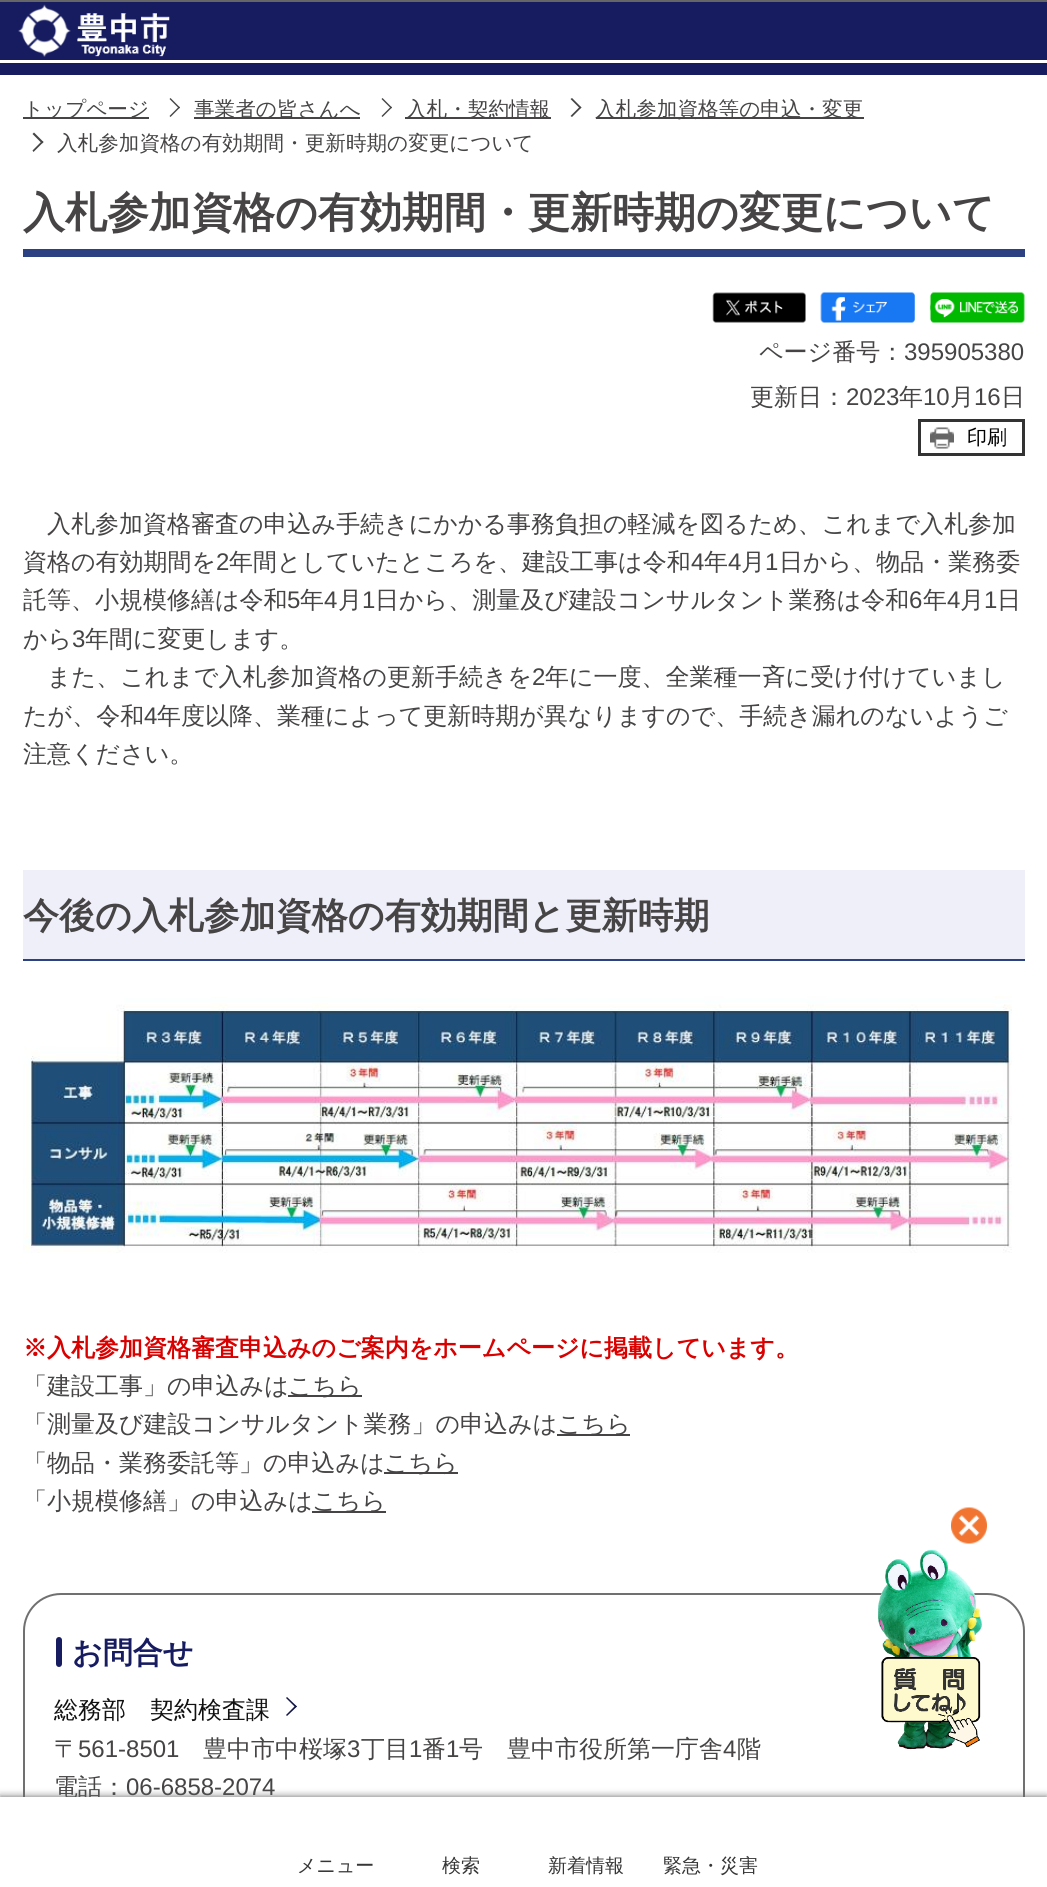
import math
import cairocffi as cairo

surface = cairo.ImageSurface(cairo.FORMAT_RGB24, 1047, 1887)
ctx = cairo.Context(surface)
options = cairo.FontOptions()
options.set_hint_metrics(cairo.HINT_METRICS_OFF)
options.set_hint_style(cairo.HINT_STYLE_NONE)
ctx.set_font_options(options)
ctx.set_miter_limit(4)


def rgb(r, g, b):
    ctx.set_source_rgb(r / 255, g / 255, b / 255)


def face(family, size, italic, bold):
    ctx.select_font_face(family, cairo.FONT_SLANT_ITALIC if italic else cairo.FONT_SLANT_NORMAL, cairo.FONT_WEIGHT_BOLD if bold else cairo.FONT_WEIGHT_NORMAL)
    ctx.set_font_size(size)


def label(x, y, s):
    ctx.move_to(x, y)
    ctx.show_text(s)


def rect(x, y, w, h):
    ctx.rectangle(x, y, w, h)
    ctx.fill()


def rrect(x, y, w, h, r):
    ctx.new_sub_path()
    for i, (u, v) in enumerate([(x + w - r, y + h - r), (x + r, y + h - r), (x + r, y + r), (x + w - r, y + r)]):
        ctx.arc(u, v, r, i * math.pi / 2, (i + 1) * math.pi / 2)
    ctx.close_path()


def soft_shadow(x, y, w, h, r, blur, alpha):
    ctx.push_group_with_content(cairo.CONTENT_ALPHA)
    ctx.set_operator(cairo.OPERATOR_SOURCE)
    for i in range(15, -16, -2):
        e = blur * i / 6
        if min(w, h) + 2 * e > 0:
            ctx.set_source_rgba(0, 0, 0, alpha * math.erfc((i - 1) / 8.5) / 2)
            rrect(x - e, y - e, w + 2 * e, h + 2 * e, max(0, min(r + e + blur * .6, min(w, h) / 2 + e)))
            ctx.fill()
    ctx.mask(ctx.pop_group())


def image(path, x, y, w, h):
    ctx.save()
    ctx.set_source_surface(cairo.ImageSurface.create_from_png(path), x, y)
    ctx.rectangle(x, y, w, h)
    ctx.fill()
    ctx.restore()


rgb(255, 255, 255)
ctx.paint()
rgb(102, 102, 102)
rect(0, 0, 1047, 2)
rgb(23, 28, 97)
rect(0, 2, 1047, 58)
image('image0.png', 18, 4, 152, 53)
rect(0, 63, 1047, 12)
rgb(70, 68, 68)
rect(23, 117, 126, 2)
face('WenQuanYi Zen Hei Medium', 20.6, 0, 0)
label(23, 116, 'トップページ')
ctx.new_path()
ctx.move_to(170.5, 98)
ctx.line_to(180, 107.5)
ctx.line_to(179, 108.5)
ctx.line_to(169.5, 99)
ctx.close_path()
ctx.fill()
ctx.new_path()
ctx.move_to(179, 106.5)
ctx.line_to(180, 107.5)
ctx.line_to(170.5, 117)
ctx.line_to(169.5, 116)
ctx.close_path()
ctx.fill()
rect(194, 117, 166, 2)
label(194, 116, '事業者の皆さんへ')
ctx.new_path()
ctx.move_to(382.5, 98)
ctx.line_to(392, 107.5)
ctx.line_to(391, 108.5)
ctx.line_to(381.5, 99)
ctx.close_path()
ctx.fill()
ctx.new_path()
ctx.move_to(391, 106.5)
ctx.line_to(392, 107.5)
ctx.line_to(382.5, 117)
ctx.line_to(381.5, 116)
ctx.close_path()
ctx.fill()
rect(405, 117, 146, 2)
label(406, 116, '入札・契約情報')
ctx.new_path()
ctx.move_to(572, 98)
ctx.line_to(581.5, 107.5)
ctx.line_to(580, 108.5)
ctx.line_to(570.5, 99)
ctx.close_path()
ctx.fill()
ctx.new_path()
ctx.move_to(580, 106.5)
ctx.line_to(581.5, 107.5)
ctx.line_to(572, 117)
ctx.line_to(570.5, 116)
ctx.close_path()
ctx.fill()
rect(596, 117, 268, 2)
label(595, 116, '入札参加資格等の申込・変更')
ctx.new_path()
ctx.move_to(34, 132.5)
ctx.line_to(43.5, 142)
ctx.line_to(42, 143.5)
ctx.line_to(32.5, 134)
ctx.close_path()
ctx.fill()
ctx.new_path()
ctx.move_to(42, 141)
ctx.line_to(43.5, 142)
ctx.line_to(33.5, 152)
ctx.line_to(32.5, 150.5)
ctx.close_path()
ctx.fill()
label(57, 150, '入札参加資格の有効期間・更新時期の変更について')
rgb(44, 65, 130)
rect(23, 249, 1002, 8)
face('WenQuanYi Zen Hei', 42, 0, 1)
rgb(70, 68, 68)
label(23, 227, '入札参加資格の有効期間・更新時期の変更について')
image('image1.png', 712, 292, 94, 31)
image('image2.png', 820, 292, 95, 31)
image('image3.png', 930, 292, 95, 31)
face('WenQuanYi Zen Hei Medium', 24, 0, 0)
label(759, 360, 'ページ番号：')
face('Liberation Sans', 24, 0, 0)
label(904, 360, '395905380')
face('WenQuanYi Zen Hei Medium', 24, 0, 0)
label(750, 405, '更新日：')
face('Liberation Sans', 24, 0, 0)
label(846, 405, '2023')
face('WenQuanYi Zen Hei Medium', 24, 0, 0)
label(899, 405, '年')
face('Liberation Sans', 24, 0, 0)
label(923, 405, '10')
face('WenQuanYi Zen Hei Medium', 24, 0, 0)
label(950, 405, '月')
face('Liberation Sans', 24, 0, 0)
label(974, 405, '16')
face('WenQuanYi Zen Hei Medium', 24, 0, 0)
label(1001, 405, '日')
image('image4.png', 930, 427, 24, 22)
ctx.rectangle(919.5, 420.5, 104, 34)
rgb(51, 51, 51)
ctx.set_line_width(3)
ctx.stroke()
face('WenQuanYi Zen Hei Medium', 20, 0, 0)
rgb(0, 0, 0)
label(967, 444, '印刷')
face('WenQuanYi Zen Hei Medium', 24, 0, 0)
rgb(70, 68, 68)
label(47, 532, '入札参加資格審査の申込み手続きにかかる事務負担の軽減を図るため、これまで入札参加')
label(23, 570, '資格の有効期間を')
face('Liberation Sans', 24, 0, 0)
label(216, 570, '2')
face('WenQuanYi Zen Hei Medium', 24, 0, 0)
label(229, 570, '年間としていたところを、建設工事は令和')
face('Liberation Sans', 24, 0, 0)
label(691, 570, '4')
face('WenQuanYi Zen Hei Medium', 24, 0, 0)
label(704, 570, '年')
face('Liberation Sans', 24, 0, 0)
label(728, 570, '4')
face('WenQuanYi Zen Hei Medium', 24, 0, 0)
label(741, 570, '月')
face('Liberation Sans', 24, 0, 0)
label(765, 570, '1')
face('WenQuanYi Zen Hei Medium', 24, 0, 0)
label(779, 570, '日から、物品・業務委')
label(23, 608, '託等、小規模修繕は令和')
face('Liberation Sans', 24, 0, 0)
label(287, 608, '5')
face('WenQuanYi Zen Hei Medium', 24, 0, 0)
label(300, 608, '年')
face('Liberation Sans', 24, 0, 0)
label(324, 608, '4')
face('WenQuanYi Zen Hei Medium', 24, 0, 0)
label(338, 608, '月')
face('Liberation Sans', 24, 0, 0)
label(362, 608, '1')
face('WenQuanYi Zen Hei Medium', 24, 0, 0)
label(375, 608, '日から、測量及び建設コンサルタント業務は令和')
face('Liberation Sans', 24, 0, 0)
label(909, 608, '6')
face('WenQuanYi Zen Hei Medium', 24, 0, 0)
label(923, 608, '年')
face('Liberation Sans', 24, 0, 0)
label(947, 608, '4')
face('WenQuanYi Zen Hei Medium', 24, 0, 0)
label(960, 608, '月')
face('Liberation Sans', 24, 0, 0)
label(984, 608, '1')
face('WenQuanYi Zen Hei Medium', 24, 0, 0)
label(997, 608, '日')
label(23, 647, 'から')
face('Liberation Sans', 24, 0, 0)
label(72, 647, '3')
face('WenQuanYi Zen Hei Medium', 24, 0, 0)
label(85, 647, '年間に変更します。')
label(47, 685, 'また、これまで入札参加資格の更新手続きを')
face('Liberation Sans', 24, 0, 0)
label(532, 685, '2')
face('WenQuanYi Zen Hei Medium', 24, 0, 0)
label(545, 685, '年に一度、全業種一斉に受け付けていまし')
label(23, 724, 'たが、令和')
face('Liberation Sans', 24, 0, 0)
label(144, 724, '4')
face('WenQuanYi Zen Hei Medium', 24, 0, 0)
label(157, 724, '年度以降、業種によって更新時期が異なりますので、手続き漏れのないようご')
label(23, 762, '注意ください。')
rgb(238, 239, 249)
rect(23, 870, 1002, 89)
rgb(44, 65, 130)
rect(23, 959, 1002, 2)
face('WenQuanYi Zen Hei', 36, 0, 1)
rgb(70, 68, 68)
label(23, 928, '今後の入札参加資格の有効期間と更新時期')
image('image5.png', 23, 996, 989, 257)
face('WenQuanYi Zen Hei', 24, 0, 1)
rgb(217, 0, 0)
label(23, 1356, '※入札参加資格審査申込みのご案内をホームページに掲載しています。')
face('WenQuanYi Zen Hei Medium', 24, 0, 0)
rgb(70, 68, 68)
label(23, 1394, '「建設工事」の申込みは')
rect(288, 1395, 74, 2)
label(288, 1394, 'こちら')
label(23, 1432, '「測量及び建設コンサルタント業務」の申込みは')
rect(557, 1434, 73, 2)
label(557, 1432, 'こちら')
label(23, 1471, '「物品・業務委託等」の申込みは')
rect(384, 1472, 74, 2)
label(384, 1471, 'こちら')
label(23, 1509, '「小規模修繕」の申込みは')
rect(312, 1511, 74, 2)
label(312, 1509, 'こちら')
rrect(24, 1594, 1000, 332, 37)
rgb(112, 112, 112)
ctx.set_line_width(2)
ctx.stroke()
rgb(23, 28, 97)
rrect(56, 1637, 6, 30, 3)
ctx.fill()
face('WenQuanYi Zen Hei', 30, 0, 1)
label(72, 1663, 'お問合せ')
face('WenQuanYi Zen Hei Medium', 24, 0, 0)
rgb(17, 17, 17)
label(54, 1718, '総務部　契約検査課')
rgb(17, 21, 71)
ctx.new_path()
ctx.move_to(287, 1697)
ctx.line_to(297, 1706.5)
ctx.line_to(295.5, 1707.5)
ctx.line_to(286, 1698)
ctx.close_path()
ctx.fill()
ctx.new_path()
ctx.move_to(295.5, 1705.5)
ctx.line_to(297, 1706.5)
ctx.line_to(287, 1716)
ctx.line_to(286, 1715)
ctx.close_path()
ctx.fill()
rgb(70, 68, 68)
label(54, 1757, '〒')
face('Liberation Sans', 24, 0, 0)
label(78, 1757, '561-8501')
face('WenQuanYi Zen Hei Medium', 24, 0, 0)
label(203, 1757, '豊中市中桜塚')
face('Liberation Sans', 24, 0, 0)
label(347, 1757, '3')
face('WenQuanYi Zen Hei Medium', 24, 0, 0)
label(361, 1757, '丁目')
face('Liberation Sans', 24, 0, 0)
label(409, 1757, '1')
face('WenQuanYi Zen Hei Medium', 24, 0, 0)
label(422, 1757, '番')
face('Liberation Sans', 24, 0, 0)
label(446, 1757, '1')
face('WenQuanYi Zen Hei Medium', 24, 0, 0)
label(459, 1757, '号　豊中市役所第一庁舎')
face('Liberation Sans', 24, 0, 0)
label(723, 1757, '4')
face('WenQuanYi Zen Hei Medium', 24, 0, 0)
label(737, 1757, '階')
label(54, 1795, '電話：')
face('Liberation Sans', 24, 0, 0)
label(126, 1795, '06-6858-2074')
rgb(102, 102, 102)
soft_shadow(0, 1797, 1047, 90, 0, 4, 1)
rgb(255, 255, 255)
rect(0, 1797, 1047, 90)
face('WenQuanYi Zen Hei Medium', 19, 0, 0)
rgb(54, 54, 54)
label(297, 1872, 'メニュー')
label(442, 1872, '検索')
label(548, 1872, '新着情報')
label(663, 1872, '緊急・災害')
image('image6.png', 951, 1507, 36, 37)
image('image7.png', 878, 1550, 105, 200)
surface.write_to_png('render.png')
